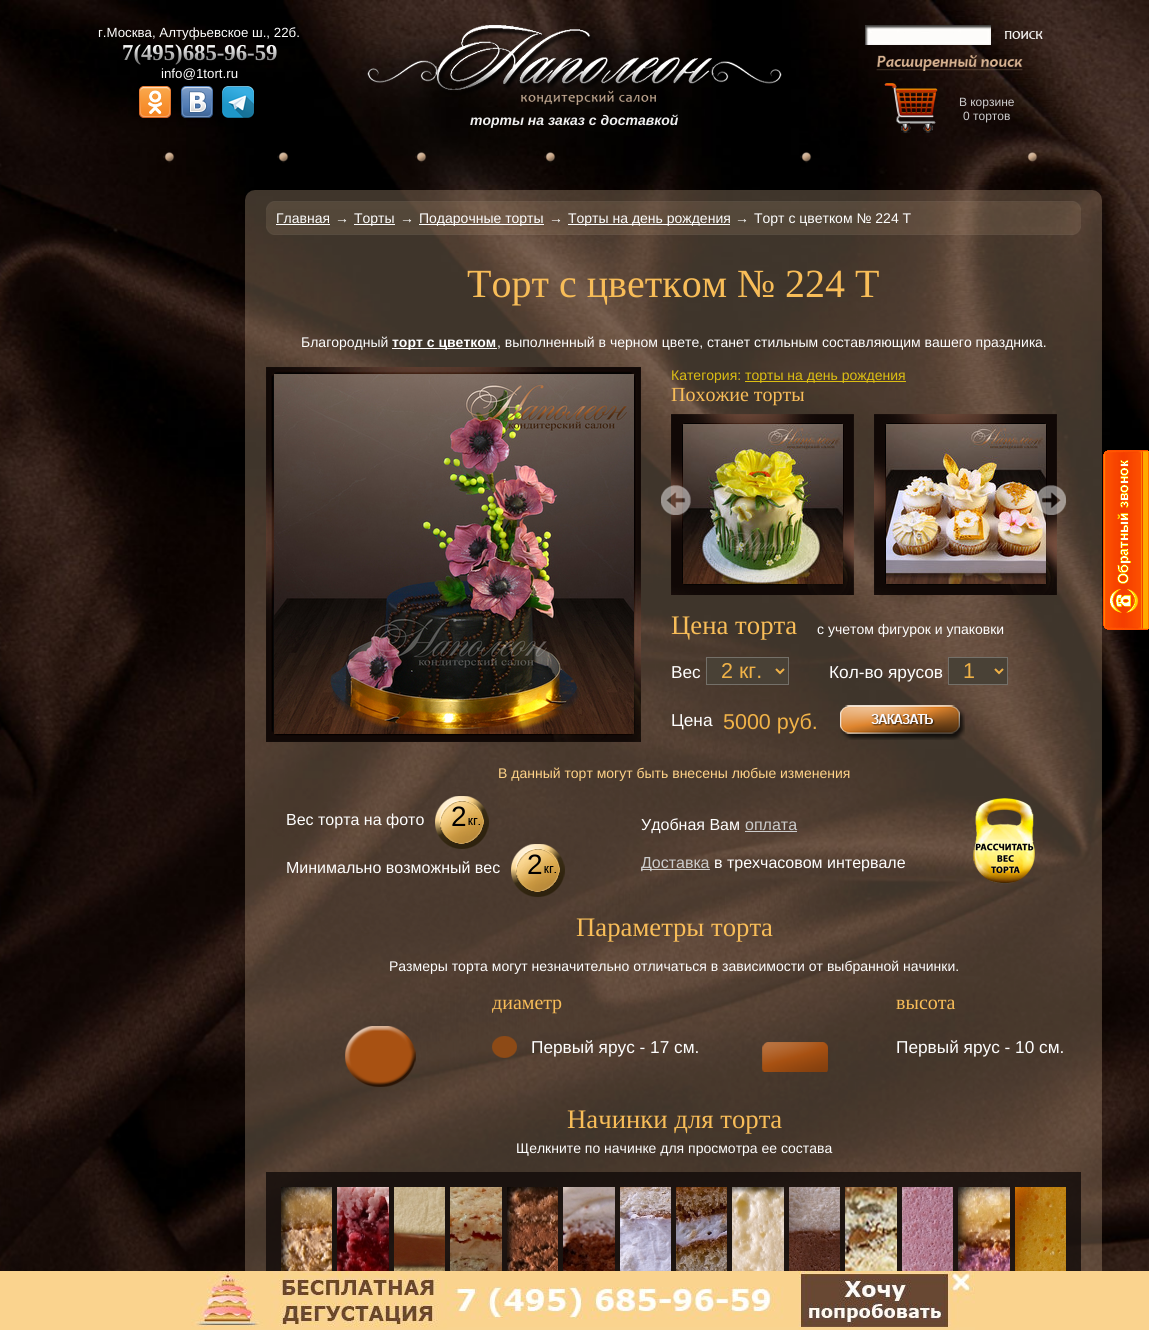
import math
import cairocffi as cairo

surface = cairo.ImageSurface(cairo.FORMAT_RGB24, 1149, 1330)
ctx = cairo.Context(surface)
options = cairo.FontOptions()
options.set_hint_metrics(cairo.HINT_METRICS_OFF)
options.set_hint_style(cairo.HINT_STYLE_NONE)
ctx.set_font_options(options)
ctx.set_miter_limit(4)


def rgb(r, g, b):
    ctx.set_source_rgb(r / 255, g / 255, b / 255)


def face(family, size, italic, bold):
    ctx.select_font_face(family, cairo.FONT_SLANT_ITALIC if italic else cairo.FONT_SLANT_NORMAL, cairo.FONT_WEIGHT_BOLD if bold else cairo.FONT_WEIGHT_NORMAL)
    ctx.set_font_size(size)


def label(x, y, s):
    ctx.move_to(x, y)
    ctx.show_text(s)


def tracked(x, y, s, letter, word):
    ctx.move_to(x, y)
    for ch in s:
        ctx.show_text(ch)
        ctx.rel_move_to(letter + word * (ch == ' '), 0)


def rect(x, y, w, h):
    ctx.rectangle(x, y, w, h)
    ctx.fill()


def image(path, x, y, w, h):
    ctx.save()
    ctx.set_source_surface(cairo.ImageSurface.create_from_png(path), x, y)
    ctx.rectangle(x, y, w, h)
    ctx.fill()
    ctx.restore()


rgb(255, 255, 255)
ctx.paint()
image('image0.png', 0, 0, 1149, 1271)
face('Liberation Sans', 13.3, 0, 0)
rgb(254, 254, 254)
label(98, 37, 'г.Москва, Алтуфьевское ш., 22б.')
face('Liberation Serif', 22.75, 0, 1)
label(122, 60, '7(495)685-96-59')
image('image1.png', 123, 46, 154, 19)
face('Liberation Sans', 13.3, 0, 0)
label(161, 78, 'info@1tort.ru')
image('image2.png', 139, 86, 32, 32)
image('image3.png', 181, 86, 32, 32)
image('image4.png', 222, 86, 32, 32)
image('image5.png', 367, 25, 415, 80)
face('Liberation Sans', 14, 1, 1)
rgb(239, 239, 239)
label(470, 125, 'торты на заказ с доставкой')
image('image6.png', 865, 25, 126, 20)
image('image7.png', 1005, 31, 38, 8)
image('image8.png', 876, 55, 147, 16)
image('image9.png', 884, 83, 54, 50)
face('Liberation Sans', 12, 0, 0)
rgb(204, 204, 204)
label(959, 106, 'В корзине')
label(963, 120, '0 тортов')
image('image10.png', 163, 152, 12, 11)
image('image11.png', 277, 152, 12, 11)
image('image12.png', 415, 152, 12, 11)
image('image13.png', 544, 152, 12, 11)
image('image14.png', 800, 152, 12, 11)
image('image15.png', 1026, 152, 12, 11)
image('image16.png', 245, 190, 857, 1081)
image('image17.png', 266, 201, 815, 9)
ctx.set_source_rgba(0.835, 0.722, 0.584, 0.14)
rect(266, 210, 815, 16)
face('Liberation Sans', 14, 0, 0)
rgb(254, 254, 254)
label(276, 223, 'Главная')
rgb(255, 255, 255)
rect(276, 224, 54, 1)
rgb(254, 254, 254)
label(335, 223, '→')
rgb(255, 255, 255)
rect(354, 224, 41, 1)
rgb(254, 254, 254)
label(354, 223, 'Торты')
label(400, 223, '→')
rgb(255, 255, 255)
rect(419, 224, 125, 1)
rgb(254, 254, 254)
label(419, 223, 'Подарочные торты')
label(549, 223, '→')
rgb(255, 255, 255)
rect(568, 224, 162, 1)
rgb(254, 254, 254)
label(568, 223, 'Торты на день рождения')
label(735, 223, '→')
label(754, 223, 'Торт с цветком № 224 Т')
image('image18.png', 266, 226, 815, 9)
face('Liberation Serif', 40, 0, 0)
rgb(248, 189, 88)
label(467, 297, 'Торт с цветком № 224 Т')
face('Liberation Sans', 14, 0, 0)
rgb(254, 254, 254)
label(301, 347, 'Благородный')
rgb(252, 251, 251)
rect(392, 348, 105, 1)
face('Liberation Sans', 14, 0, 1)
rgb(254, 254, 254)
label(392, 347, 'торт с цветком')
face('Liberation Sans', 14, 0, 0)
label(497, 347, ', выполненный в черном цвете, станет стильным составляющим вашего праздника.')
image('image19.png', 266, 367, 375, 375)
image('image20.png', 274, 374, 360, 360)
rgb(220, 190, 19)
label(671, 380, 'Категория:')
rect(745, 381, 161, 1)
label(745, 380, 'торты на день рождения')
face('Liberation Serif', 20, 0, 0)
rgb(248, 189, 88)
label(671, 401, 'Похожие торты')
image('image21.png', 671, 414, 183, 181)
image('image22.png', 683, 424, 160, 160)
image('image23.png', 874, 414, 183, 181)
image('image24.png', 886, 424, 160, 160)
image('image25.png', 661, 485, 30, 30)
image('image26.png', 1036, 485, 30, 30)
face('Liberation Serif', 26.75, 0, 0)
label(671, 634, 'Цена торта')
face('Liberation Sans', 14, 0, 0)
rgb(254, 254, 254)
label(817, 634, 'с учетом фигурок и упаковки')
face('Liberation Sans', 17.25, 0, 0)
label(671, 678, 'Вес')
rgb(73, 65, 54)
ctx.rectangle(706.5, 657.5, 82, 27)
ctx.fill_preserve()
rgb(116, 112, 105)
ctx.set_line_width(1)
ctx.stroke()
ctx.new_path()
ctx.move_to(776, 669)
ctx.line_to(780, 673)
ctx.line_to(784, 669)
rgb(240, 178, 71)
ctx.set_line_width(2)
ctx.stroke()
face('Liberation Sans', 21.5, 0, 0)
label(721, 678, '2 кг.')
face('Liberation Sans', 17.25, 0, 0)
rgb(254, 254, 254)
label(829, 678, 'Кол-во ярусов')
rgb(73, 65, 54)
ctx.rectangle(948.5, 657.5, 59, 27)
ctx.fill_preserve()
rgb(116, 112, 105)
ctx.set_line_width(1)
ctx.stroke()
ctx.new_path()
ctx.move_to(995, 669)
ctx.line_to(999, 673)
ctx.line_to(1003, 669)
rgb(240, 178, 71)
ctx.set_line_width(2)
ctx.stroke()
face('Liberation Sans', 21.5, 0, 0)
label(963, 678, '1')
face('Liberation Sans', 17.25, 0, 0)
rgb(254, 254, 254)
label(671, 726, 'Цена')
face('Liberation Sans', 21.5, 0, 0)
rgb(240, 178, 71)
label(723, 729, '5000 руб.')
image('image27.png', 840, 705, 125, 35)
face('Liberation Sans', 14, 0, 0)
rgb(254, 210, 135)
label(498, 778, 'В данный торт могут быть внесены любые изменения')
face('Liberation Sans', 16, 0, 0)
rgb(254, 254, 254)
label(286, 825, 'Вес торта на фото')
image('image28.png', 435, 796, 54, 53)
face('Liberation Sans', 28, 0, 0)
rgb(0, 0, 0)
tracked(451, 826, '2', -3, 0)
face('Liberation Sans', 16, 0, 0)
rgb(254, 254, 254)
label(286, 873, 'Минимально возможный вес')
image('image29.png', 511, 844, 54, 53)
face('Liberation Sans', 28, 0, 0)
rgb(0, 0, 0)
tracked(527, 874, '2', -3, 0)
face('Liberation Sans', 16, 0, 0)
rgb(254, 254, 254)
label(641, 830, 'Удобная Вам')
rgb(204, 204, 204)
label(745, 830, 'оплата')
rect(745, 831, 52, 1)
rect(641, 869, 69, 1)
label(641, 868, 'Доставка')
rgb(254, 254, 254)
label(714, 868, 'в трехчасовом интервале')
image('image30.png', 973, 798, 62, 86)
face('Liberation Serif', 26.75, 0, 0)
rgb(248, 189, 88)
label(576, 936, 'Параметры торта')
face('Liberation Sans', 14, 0, 0)
rgb(254, 254, 254)
label(389, 971, 'Размеры торта могут незначительно отличаться в зависимости от выбранной начинки.')
face('Liberation Serif', 20, 0, 0)
rgb(248, 189, 88)
label(492, 1009, 'диаметр')
label(896, 1009, 'высота')
image('image31.png', 345, 1026, 71, 61)
image('image32.png', 492, 1036, 25, 22)
face('Liberation Sans', 17.25, 0, 0)
rgb(254, 254, 254)
label(531, 1053, 'Первый ярус - 17 см.')
image('image33.png', 762, 1042, 66, 30)
label(896, 1053, 'Первый ярус - 10 см.')
face('Liberation Serif', 26.75, 0, 0)
rgb(248, 189, 88)
label(567, 1128, 'Начинки для торта')
face('Liberation Sans', 14, 0, 0)
rgb(254, 254, 254)
label(516, 1153, 'Щелкните по начинке для просмотра ее состава')
ctx.set_source_rgba(0.063, 0.039, 0.031, 0.79)
rect(266, 1172, 815, 99)
image('image34.png', 281, 1187, 51, 84)
image('image35.png', 337, 1187, 52, 84)
image('image36.png', 394, 1187, 51, 84)
image('image37.png', 450, 1187, 52, 84)
image('image38.png', 507, 1187, 51, 84)
image('image39.png', 563, 1187, 52, 84)
image('image40.png', 620, 1187, 51, 84)
image('image41.png', 676, 1187, 51, 84)
image('image42.png', 732, 1187, 52, 84)
image('image43.png', 789, 1187, 51, 84)
image('image44.png', 845, 1187, 52, 84)
image('image45.png', 902, 1187, 51, 84)
image('image46.png', 958, 1187, 52, 84)
image('image47.png', 1015, 1187, 51, 84)
image('image48.png', 1103, 450, 46, 180)
rgb(250, 211, 142)
rect(0, 1271, 1149, 59)
image('image49.png', 191, 1271, 784, 59)
surface.write_to_png('render.png')
